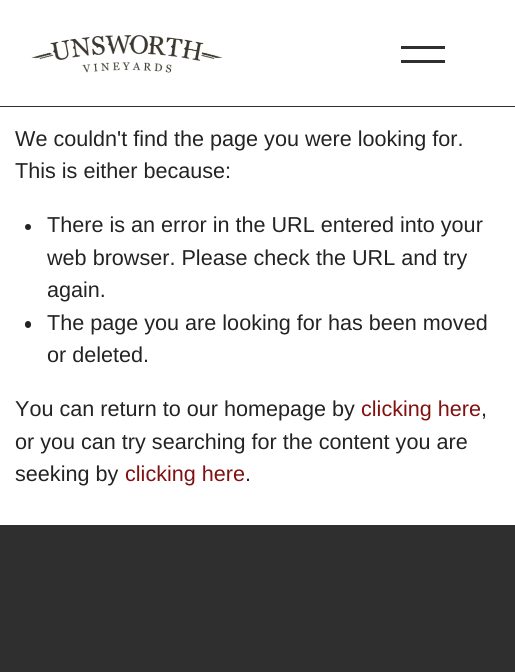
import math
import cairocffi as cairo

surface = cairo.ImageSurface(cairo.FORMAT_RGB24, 515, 672)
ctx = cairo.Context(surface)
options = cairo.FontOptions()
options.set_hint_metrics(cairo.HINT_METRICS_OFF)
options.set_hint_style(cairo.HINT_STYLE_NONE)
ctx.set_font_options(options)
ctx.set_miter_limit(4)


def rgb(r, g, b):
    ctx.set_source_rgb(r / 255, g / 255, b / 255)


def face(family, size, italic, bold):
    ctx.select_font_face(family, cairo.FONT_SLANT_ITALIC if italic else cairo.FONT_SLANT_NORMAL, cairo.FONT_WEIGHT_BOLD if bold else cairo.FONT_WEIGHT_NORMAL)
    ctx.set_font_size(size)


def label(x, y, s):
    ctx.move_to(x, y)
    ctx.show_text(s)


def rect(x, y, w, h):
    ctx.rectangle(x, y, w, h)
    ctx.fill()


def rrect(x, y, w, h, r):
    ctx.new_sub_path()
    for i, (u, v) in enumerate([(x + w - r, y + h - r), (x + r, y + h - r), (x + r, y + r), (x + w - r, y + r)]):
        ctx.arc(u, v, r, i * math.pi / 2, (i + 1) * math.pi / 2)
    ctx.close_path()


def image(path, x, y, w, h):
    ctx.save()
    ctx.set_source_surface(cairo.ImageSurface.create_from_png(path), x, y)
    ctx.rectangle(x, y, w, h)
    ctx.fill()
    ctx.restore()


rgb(255, 255, 255)
ctx.paint()
image('image0.png', 31, 35, 191, 38)
rgb(48, 47, 47)
rect(401, 46, 44, 3)
rect(401, 60, 44, 3)
rect(0, 106, 515, 1)
face('Liberation Sans', 21.6, 0, 0)
rgb(35, 35, 36)
label(15, 146, 'We couldn\'t find the page you were looking for.')
label(15, 178, 'This is either because:')
ctx.new_path()
ctx.arc(28, 227, 3, 0, 2 * math.pi)
ctx.fill()
label(47, 232, 'There is an error in the URL entered into your')
label(47, 265, 'web browser. Please check the URL and try')
label(47, 297, 'again.')
rrect(25, 321, 6, 7, 3)
ctx.fill()
label(47, 330, 'The page you are looking for has been moved')
label(47, 362, 'or deleted.')
label(15, 416, 'You can return to our homepage by')
rgb(129, 16, 16)
label(361, 416, 'clicking here')
rgb(35, 35, 36)
label(481, 416, ',')
label(15, 449, 'or you can try searching for the content you are')
label(15, 481, 'seeking by')
rgb(129, 16, 16)
label(125, 481, 'clicking here')
rgb(35, 35, 36)
label(245, 481, '.')
rgb(48, 47, 47)
rect(0, 525, 515, 147)
surface.write_to_png('render.png')
